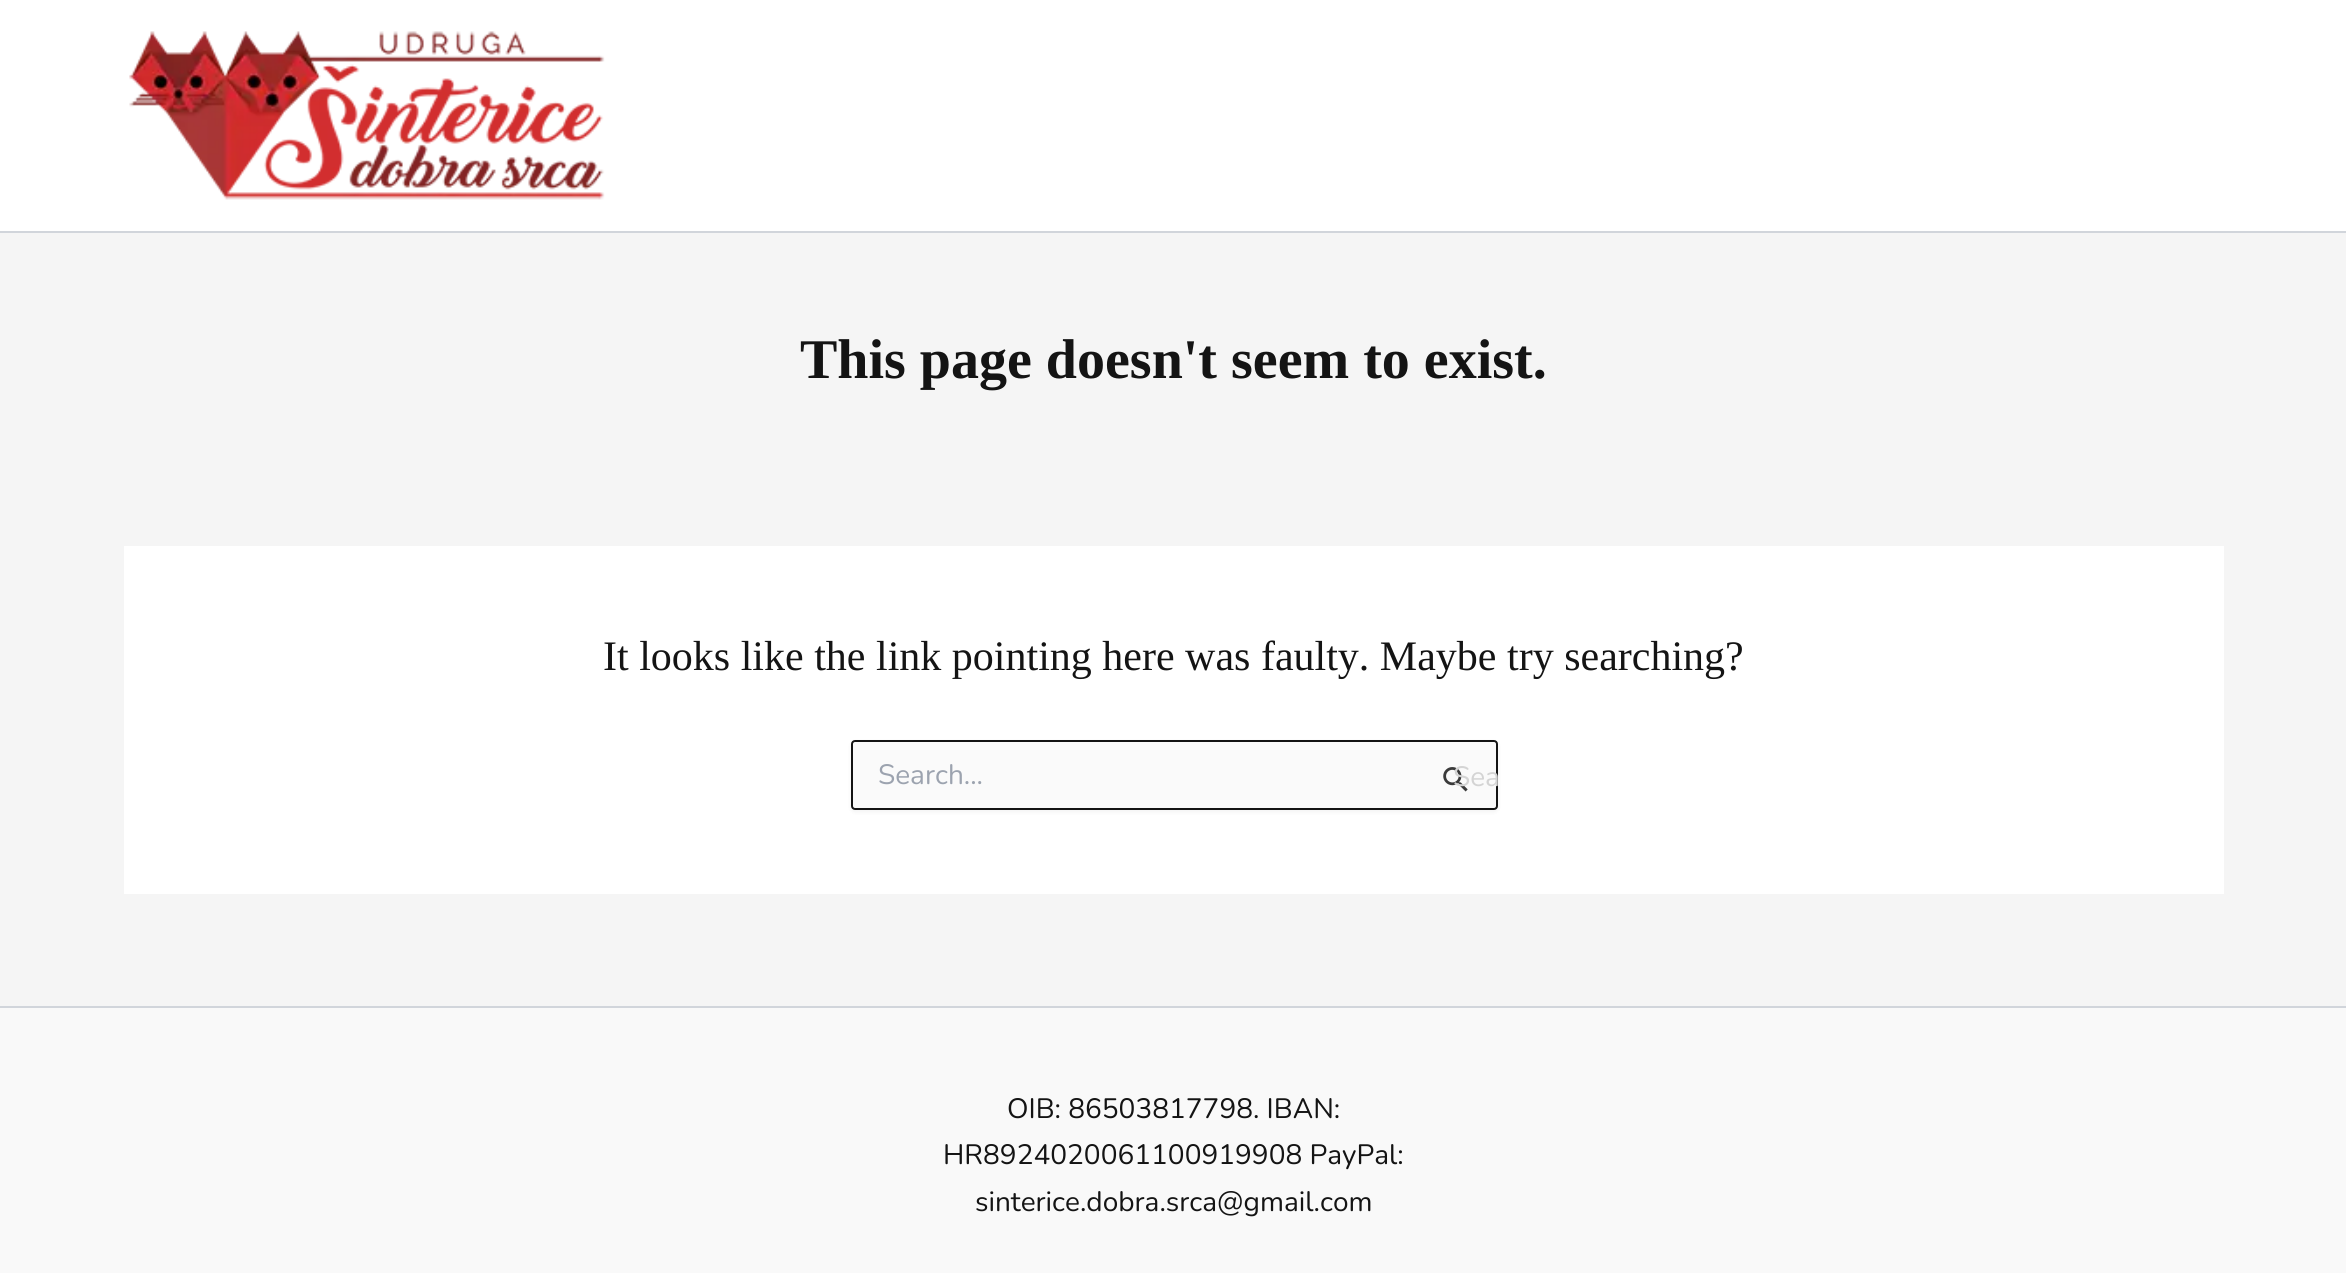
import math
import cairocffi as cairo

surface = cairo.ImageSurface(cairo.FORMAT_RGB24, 2346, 1273)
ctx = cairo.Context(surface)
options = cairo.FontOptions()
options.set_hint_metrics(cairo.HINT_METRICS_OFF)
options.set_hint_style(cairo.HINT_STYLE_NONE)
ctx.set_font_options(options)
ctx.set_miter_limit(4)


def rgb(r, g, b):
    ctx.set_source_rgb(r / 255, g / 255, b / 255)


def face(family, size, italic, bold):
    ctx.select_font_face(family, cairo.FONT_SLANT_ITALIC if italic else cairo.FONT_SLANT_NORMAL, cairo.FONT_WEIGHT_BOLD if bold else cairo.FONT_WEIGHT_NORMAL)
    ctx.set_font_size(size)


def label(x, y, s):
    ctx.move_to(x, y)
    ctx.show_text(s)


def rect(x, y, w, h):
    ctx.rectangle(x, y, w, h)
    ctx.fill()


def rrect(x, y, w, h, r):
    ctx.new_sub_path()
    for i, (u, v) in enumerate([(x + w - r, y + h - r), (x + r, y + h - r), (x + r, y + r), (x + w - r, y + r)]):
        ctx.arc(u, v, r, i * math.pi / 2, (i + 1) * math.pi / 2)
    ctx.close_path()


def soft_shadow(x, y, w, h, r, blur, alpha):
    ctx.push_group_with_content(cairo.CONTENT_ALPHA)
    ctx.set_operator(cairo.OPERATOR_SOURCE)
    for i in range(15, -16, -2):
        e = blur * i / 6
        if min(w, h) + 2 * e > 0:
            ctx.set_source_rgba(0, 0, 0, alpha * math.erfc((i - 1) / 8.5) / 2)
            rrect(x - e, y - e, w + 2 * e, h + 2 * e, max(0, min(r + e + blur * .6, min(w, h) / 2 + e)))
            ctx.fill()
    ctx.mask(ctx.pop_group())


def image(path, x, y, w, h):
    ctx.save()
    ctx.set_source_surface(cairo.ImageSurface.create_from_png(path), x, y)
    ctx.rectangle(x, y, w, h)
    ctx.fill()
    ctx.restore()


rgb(245, 245, 245)
ctx.paint()
rgb(255, 255, 255)
rect(0, 0, 2346, 231)
rgb(209, 213, 219)
rect(0, 231, 2346, 2)
image('image0.png', 129, 31, 476, 169)
face('Liberation Serif', 56, 0, 1)
rgb(20, 20, 20)
label(800, 378, 'This page doesn\'t seem to exist.')
rgb(255, 255, 255)
rect(124, 546, 2100, 348)
face('Liberation Serif', 42, 0, 0)
rgb(20, 20, 20)
label(603, 670, 'It looks like the link pointing here was faulty. Maybe try searching?')
rgb(0, 0, 0)
soft_shadow(851, 742, 647, 70, 4, 2, 0.05)
rgb(250, 250, 250)
rrect(852, 741, 645, 68, 3)
ctx.fill_preserve()
rgb(20, 20, 20)
ctx.stroke()
face('Nunito ExtraLight', 28, 0, 0)
rgb(156, 163, 175)
label(878, 784, 'Search...')
image('image1.png', 1443, 767, 25, 25)
ctx.save()
rrect(1419, 740, 79, 74, 4)
ctx.clip()
rgb(212, 212, 212)
label(1453, 786, 'Sea')
ctx.restore()
rgb(249, 249, 249)
rect(0, 1008, 2346, 265)
rgb(209, 213, 219)
rect(0, 1006, 2346, 2)
rgb(20, 20, 20)
label(1007, 1118, 'OIB: 86503817798. IBAN:')
label(943, 1164, 'HR8924020061100919908 PayPal:')
label(975, 1211, 'sinterice.dobra.srca@gmail.com')
surface.write_to_png('render.png')
